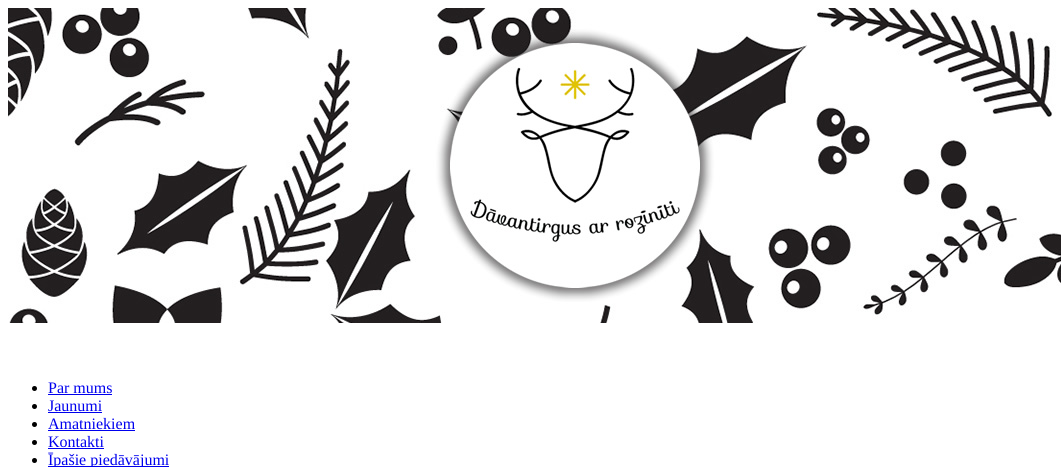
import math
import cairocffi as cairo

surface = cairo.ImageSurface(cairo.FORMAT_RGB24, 1061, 467)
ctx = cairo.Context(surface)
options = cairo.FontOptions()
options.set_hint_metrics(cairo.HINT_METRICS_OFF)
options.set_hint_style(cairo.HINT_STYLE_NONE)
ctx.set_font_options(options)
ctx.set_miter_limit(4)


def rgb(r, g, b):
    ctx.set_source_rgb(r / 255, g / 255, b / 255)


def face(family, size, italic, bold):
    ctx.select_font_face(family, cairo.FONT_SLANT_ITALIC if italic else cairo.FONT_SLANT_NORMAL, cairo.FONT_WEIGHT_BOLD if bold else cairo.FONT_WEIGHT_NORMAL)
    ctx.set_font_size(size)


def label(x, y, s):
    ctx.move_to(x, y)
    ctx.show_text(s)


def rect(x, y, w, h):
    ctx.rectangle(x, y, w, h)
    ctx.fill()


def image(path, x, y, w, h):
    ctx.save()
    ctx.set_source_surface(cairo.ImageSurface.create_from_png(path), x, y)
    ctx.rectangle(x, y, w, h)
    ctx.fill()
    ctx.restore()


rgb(255, 255, 255)
ctx.paint()
image('image0.png', 8, 8, 1053, 315)
rgb(0, 0, 0)
ctx.arc(34.5, 388.5, 2.5, 0, 2 * math.pi)
ctx.fill()
face('Liberation Serif', 16, 0, 0)
rgb(0, 0, 238)
label(48, 393, 'Par mums')
rect(48, 394, 64, 1)
rgb(0, 0, 0)
ctx.new_path()
ctx.arc(34.5, 406.5, 2.5, 0, 2 * math.pi)
ctx.fill()
rgb(0, 0, 238)
label(48, 411, 'Jaunumi')
rect(48, 412, 54, 1)
rgb(0, 0, 0)
ctx.new_path()
ctx.arc(34.5, 424.5, 2.5, 0, 2 * math.pi)
ctx.fill()
rgb(0, 0, 238)
label(48, 429, 'Amatniekiem')
rect(48, 430, 87, 1)
rgb(0, 0, 0)
ctx.new_path()
ctx.arc(34.5, 442.5, 2.5, 0, 2 * math.pi)
ctx.fill()
rgb(0, 0, 238)
label(48, 447, 'Kontakti')
rect(48, 448, 56, 1)
rgb(0, 0, 0)
ctx.new_path()
ctx.arc(34.5, 460.5, 2.5, 0, 2 * math.pi)
ctx.fill()
rgb(0, 0, 238)
rect(48, 466, 121, 1)
label(48, 465, 'Īpašie piedāvājumi')
surface.write_to_png('render.png')
